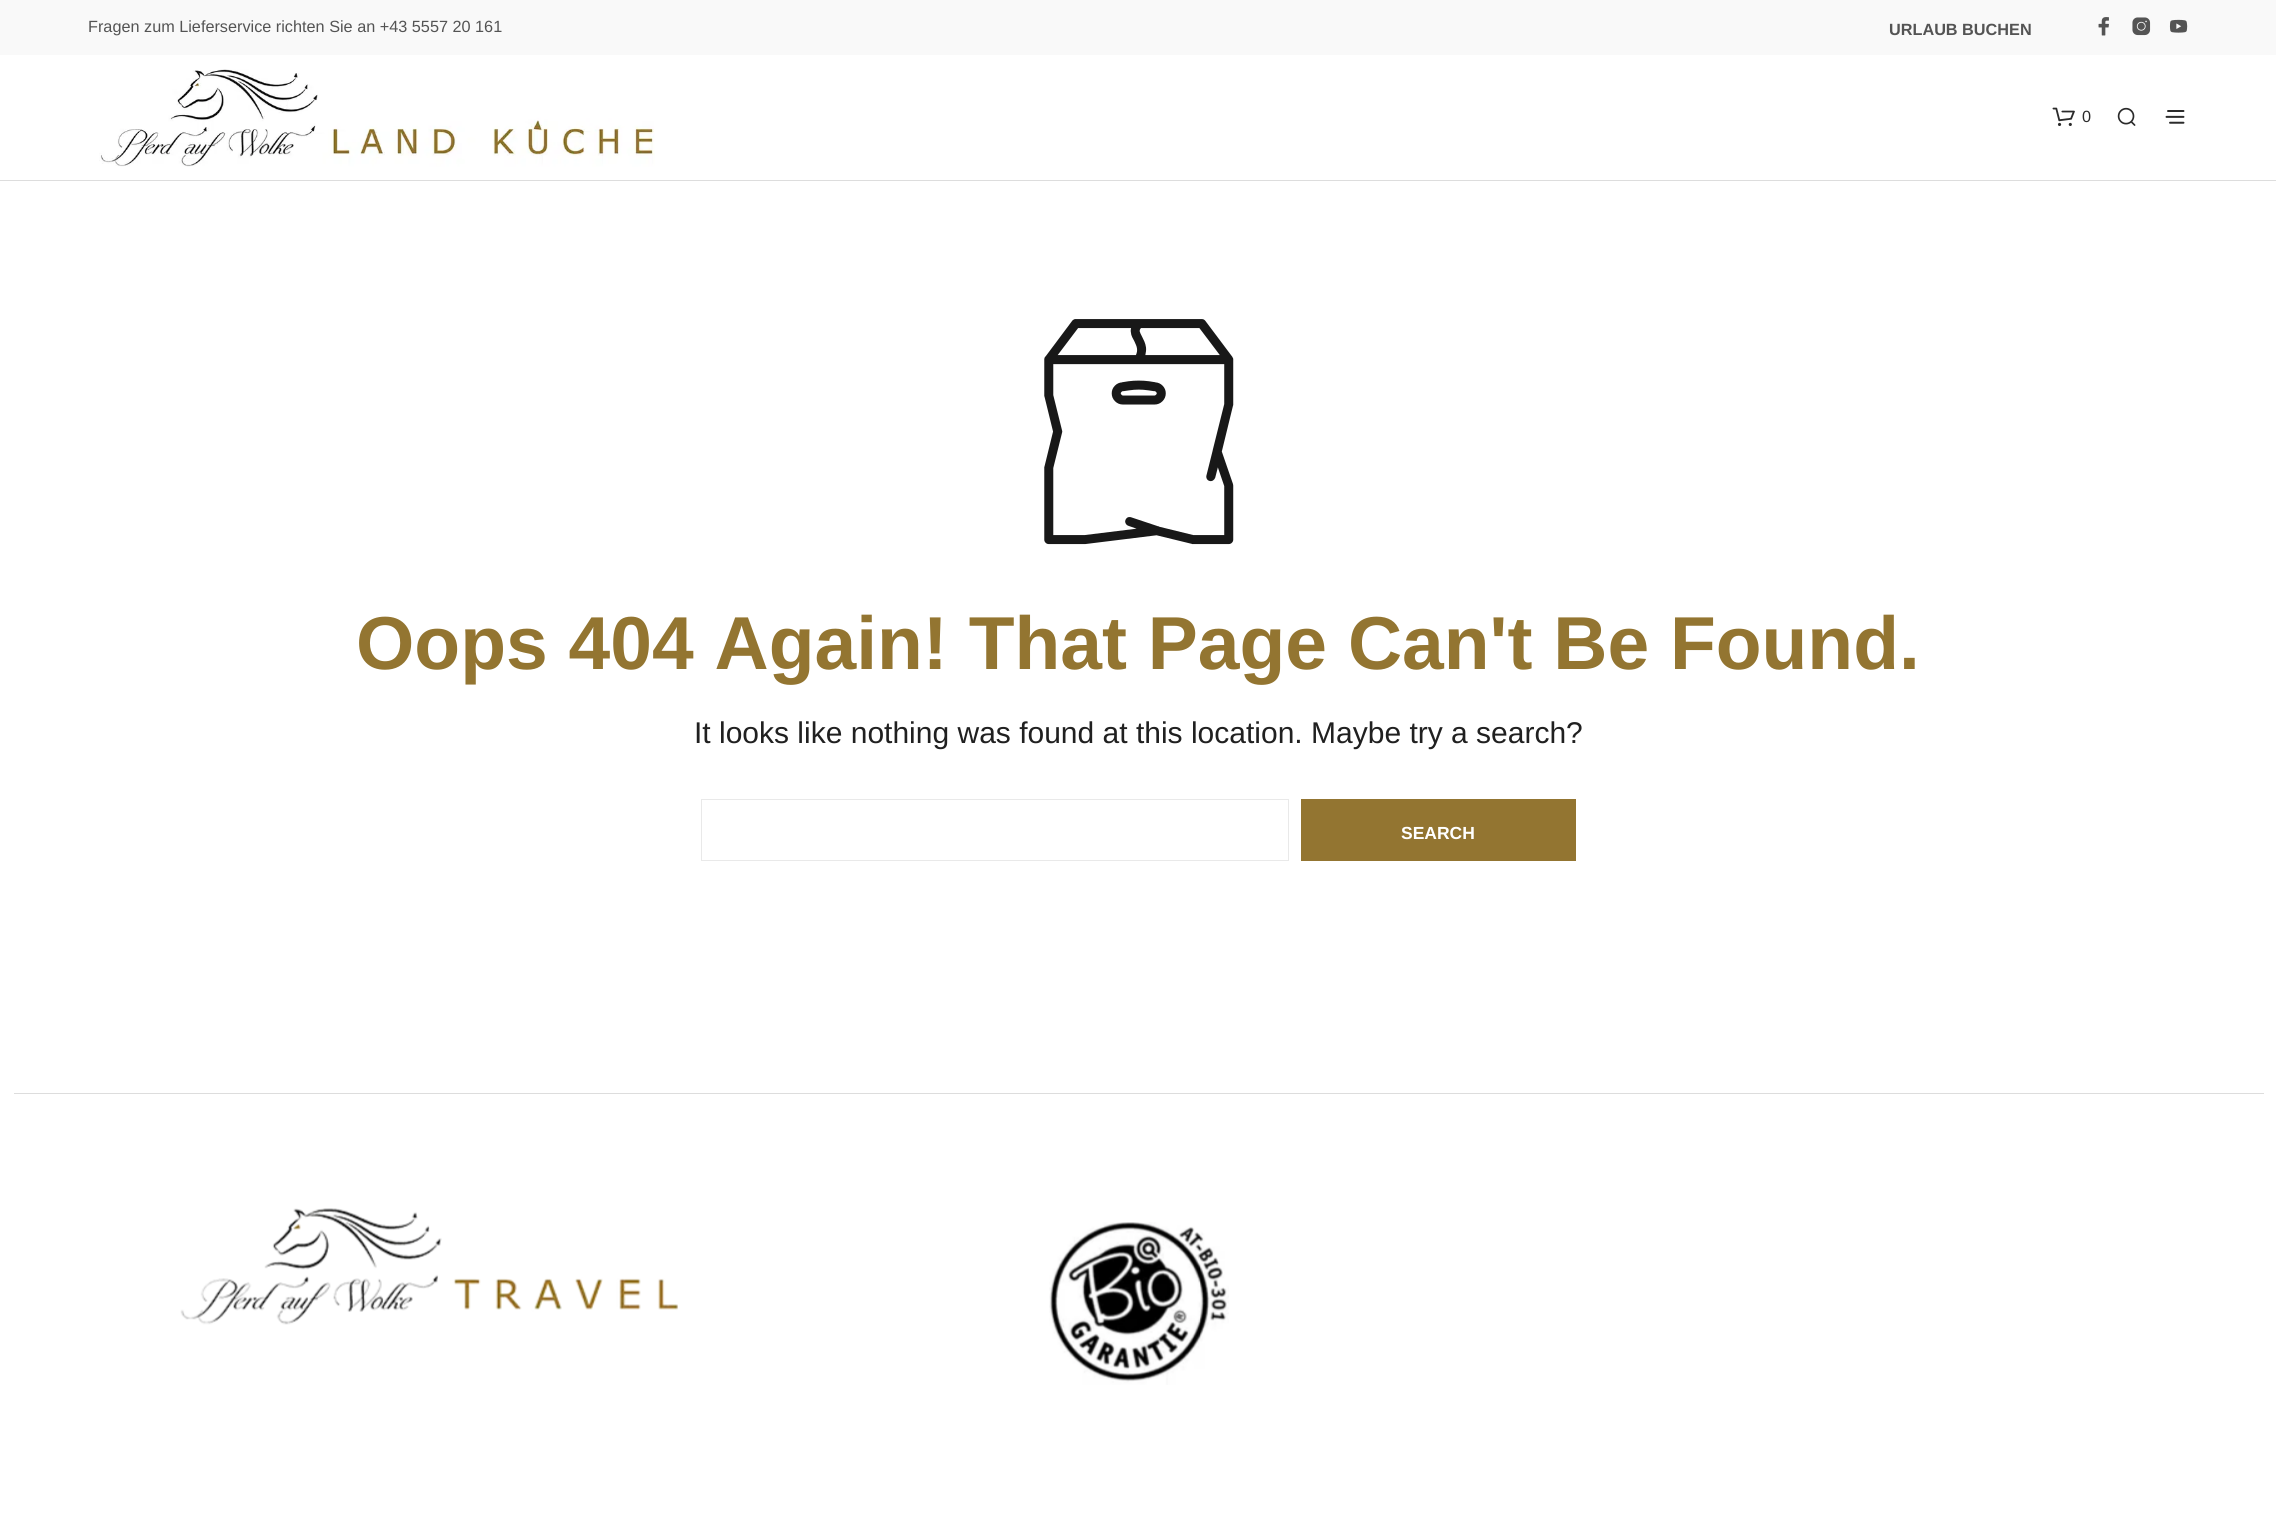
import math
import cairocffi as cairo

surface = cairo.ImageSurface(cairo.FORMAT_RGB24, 2276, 1529)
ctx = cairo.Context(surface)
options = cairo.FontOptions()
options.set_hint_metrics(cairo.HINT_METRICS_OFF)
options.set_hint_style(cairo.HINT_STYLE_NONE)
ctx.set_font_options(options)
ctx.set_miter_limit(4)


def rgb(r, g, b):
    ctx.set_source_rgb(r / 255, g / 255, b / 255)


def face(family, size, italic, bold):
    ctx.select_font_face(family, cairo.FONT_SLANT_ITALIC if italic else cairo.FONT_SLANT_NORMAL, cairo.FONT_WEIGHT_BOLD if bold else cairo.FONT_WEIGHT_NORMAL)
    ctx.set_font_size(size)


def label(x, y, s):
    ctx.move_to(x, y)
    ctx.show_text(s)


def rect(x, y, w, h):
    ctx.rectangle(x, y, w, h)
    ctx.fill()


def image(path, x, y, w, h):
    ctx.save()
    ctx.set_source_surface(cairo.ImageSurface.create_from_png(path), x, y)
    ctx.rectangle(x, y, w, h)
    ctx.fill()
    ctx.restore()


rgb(255, 255, 255)
ctx.paint()
rgb(249, 249, 249)
rect(0, 0, 2276, 55)
face('Liberation Sans', 16.25, 0, 0)
rgb(84, 84, 84)
label(88, 32, 'Fragen zum Lieferservice richten Sie an +43 5557 20 161')
face('Liberation Sans', 16.25, 0, 1)
label(1889, 35, 'URLAUB BUCHEN')
image('image0.png', 2098, 17, 11, 19)
image('image1.png', 2132, 17, 19, 19)
image('image2.png', 2169, 19, 19, 14)
rgb(221, 221, 221)
rect(0, 180, 2276, 1)
image('image3.png', 99, 69, 556, 98)
image('image4.png', 2052, 107, 23, 19)
face('Liberation Sans', 16.25, 0, 0)
rgb(43, 43, 43)
label(2082, 122, '0')
image('image5.png', 2117, 107, 19, 19)
image('image6.png', 2165, 110, 20, 14)
image('image7.png', 1044, 319, 190, 226)
face('Liberation Sans', 75, 0, 1)
rgb(147, 117, 49)
label(356, 669, 'Oops 404 Again! That Page Can\'t Be Found.')
face('Liberation Sans', 30, 0, 0)
rgb(32, 32, 32)
label(694, 743, 'It looks like nothing was found at this location. Maybe try a search?')
ctx.rectangle(701.5, 799.5, 587, 61)
rgb(233, 233, 233)
ctx.set_line_width(1)
ctx.stroke()
rgb(147, 117, 49)
rect(1301, 799, 275, 62)
face('Liberation Sans', 17.5, 0, 1)
rgb(255, 255, 255)
label(1401, 839, 'SEARCH')
rgb(221, 221, 221)
rect(14, 1093, 2250, 1)
image('image8.png', 180, 1208, 499, 117)
image('image9.png', 1049, 1222, 180, 163)
surface.write_to_png('render.png')
